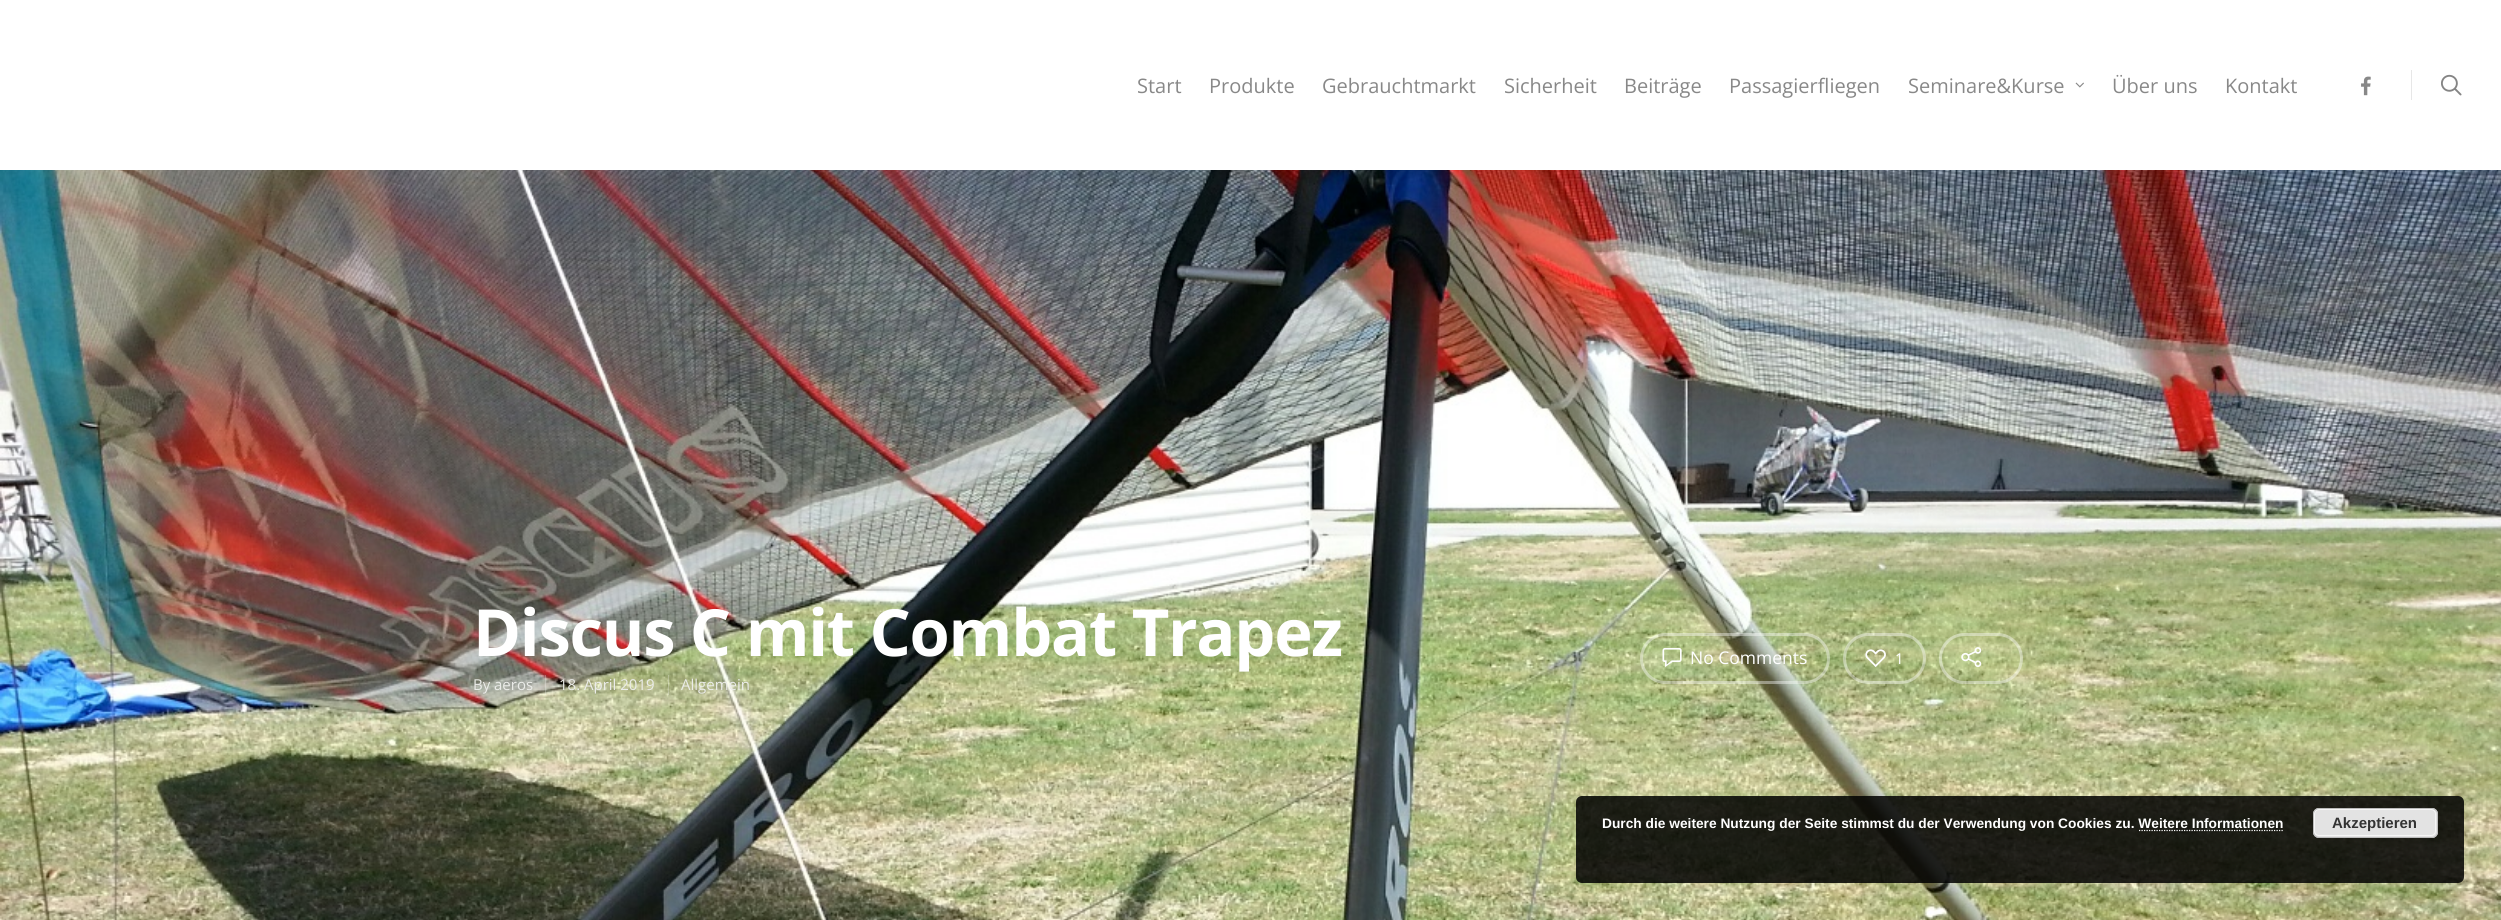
import math
import cairocffi as cairo

surface = cairo.ImageSurface(cairo.FORMAT_RGB24, 2501, 920)
ctx = cairo.Context(surface)
options = cairo.FontOptions()
options.set_hint_metrics(cairo.HINT_METRICS_OFF)
options.set_hint_style(cairo.HINT_STYLE_NONE)
ctx.set_font_options(options)
ctx.set_miter_limit(4)


def rgb(r, g, b):
    ctx.set_source_rgb(r / 255, g / 255, b / 255)


def face(family, size, italic, bold):
    ctx.select_font_face(family, cairo.FONT_SLANT_ITALIC if italic else cairo.FONT_SLANT_NORMAL, cairo.FONT_WEIGHT_BOLD if bold else cairo.FONT_WEIGHT_NORMAL)
    ctx.set_font_size(size)


def label(x, y, s):
    ctx.move_to(x, y)
    ctx.show_text(s)


def tracked(x, y, s, letter, word):
    ctx.move_to(x, y)
    for ch in s:
        ctx.show_text(ch)
        ctx.rel_move_to(letter + word * (ch == ' '), 0)


def rect(x, y, w, h):
    ctx.rectangle(x, y, w, h)
    ctx.fill()


def rrect(x, y, w, h, r):
    ctx.new_sub_path()
    for i, (u, v) in enumerate([(x + w - r, y + h - r), (x + r, y + h - r), (x + r, y + r), (x + w - r, y + r)]):
        ctx.arc(u, v, r, i * math.pi / 2, (i + 1) * math.pi / 2)
    ctx.close_path()


def image(path, x, y, w, h):
    ctx.save()
    ctx.set_source_surface(cairo.ImageSurface.create_from_png(path), x, y)
    ctx.rectangle(x, y, w, h)
    ctx.fill()
    ctx.restore()


rgb(255, 255, 255)
ctx.paint()
face('Open Sans', 20, 0, 0)
rgb(136, 136, 136)
label(1137, 93, 'Start')
label(1209, 93, 'Produkte')
label(1322, 93, 'Gebrauchtmarkt')
label(1504, 93, 'Sicherheit')
label(1624, 93, 'Beiträge')
label(1729, 93, 'Passagierfliegen')
label(1908, 93, 'Seminare&Kurse')
image('image0.png', 2075, 82, 9, 6)
label(2112, 93, 'Über uns')
label(2225, 93, 'Kontakt')
image('image1.png', 2361, 76, 10, 20)
rgb(231, 231, 231)
rect(2411, 70, 1, 30)
image('image2.png', 2441, 74, 21, 22)
image('image3.png', 0, 170, 2501, 750)
face('Open Sans', 65, 0, 1)
rgb(255, 255, 255)
tracked(473, 656, 'Discus C mit Combat Trapez', -1.25, 0)
rrect(1641.5, 634.5, 187, 48, 24)
ctx.set_source_rgba(1, 1, 1, 0.4)
ctx.set_line_width(3)
ctx.stroke()
image('image4.png', 1662, 647, 20, 20)
face('Open Sans', 17.5, 0, 0)
rgb(255, 255, 255)
label(1690, 664, 'No Comments')
rrect(1844.5, 634.5, 80, 48, 24)
ctx.set_source_rgba(1, 1, 1, 0.4)
ctx.stroke()
image('image5.png', 1865, 649, 21, 19)
face('Open Sans', 15, 0, 0)
rgb(255, 255, 255)
label(1895, 664, '1')
rrect(1940.5, 634.5, 81, 48, 24)
ctx.set_source_rgba(1, 1, 1, 0.4)
ctx.stroke()
image('image6.png', 1961, 647, 21, 20)
rgb(235, 236, 233)
label(473, 690, 'By')
label(494, 690, 'aeros')
ctx.set_source_rgba(1, 1, 1, 0.25)
rect(545, 675, 1, 20)
rgb(235, 236, 233)
label(559, 690, '18. April 2019')
ctx.set_source_rgba(1, 1, 1, 0.25)
rect(668, 675, 1, 20)
rgb(235, 236, 233)
label(681, 690, 'Allgemein')
ctx.set_source_rgba(0, 0, 0, 0.85)
rrect(1576, 796, 888, 87, 6)
ctx.fill()
face('Liberation Sans', 13.75, 0, 1)
rgb(255, 255, 255)
label(1602, 828, 'Durch die weitere Nutzung der Seite stimmst du der Verwendung von Cookies zu. Weitere Informationen')
rgb(227, 227, 227)
rrect(2313, 808, 125, 30, 6)
ctx.fill()
rrect(2314.5, 809.5, 121, 26, 4.5)
rgb(246, 246, 246)
ctx.set_line_width(1)
ctx.stroke()
rrect(2313.5, 808.5, 124, 29, 5.5)
rgb(187, 187, 187)
ctx.stroke()
face('Liberation Sans', 15, 0, 1)
rgb(51, 51, 51)
label(2332, 828, 'Akzeptieren')
ctx.new_path()
ctx.move_to(2139, 830.5)
ctx.line_to(2284, 830.5)
rgb(255, 255, 255)
ctx.set_line_width(1.2)
ctx.set_dash([1.25, 1.25])
ctx.stroke()
surface.write_to_png('render.png')
